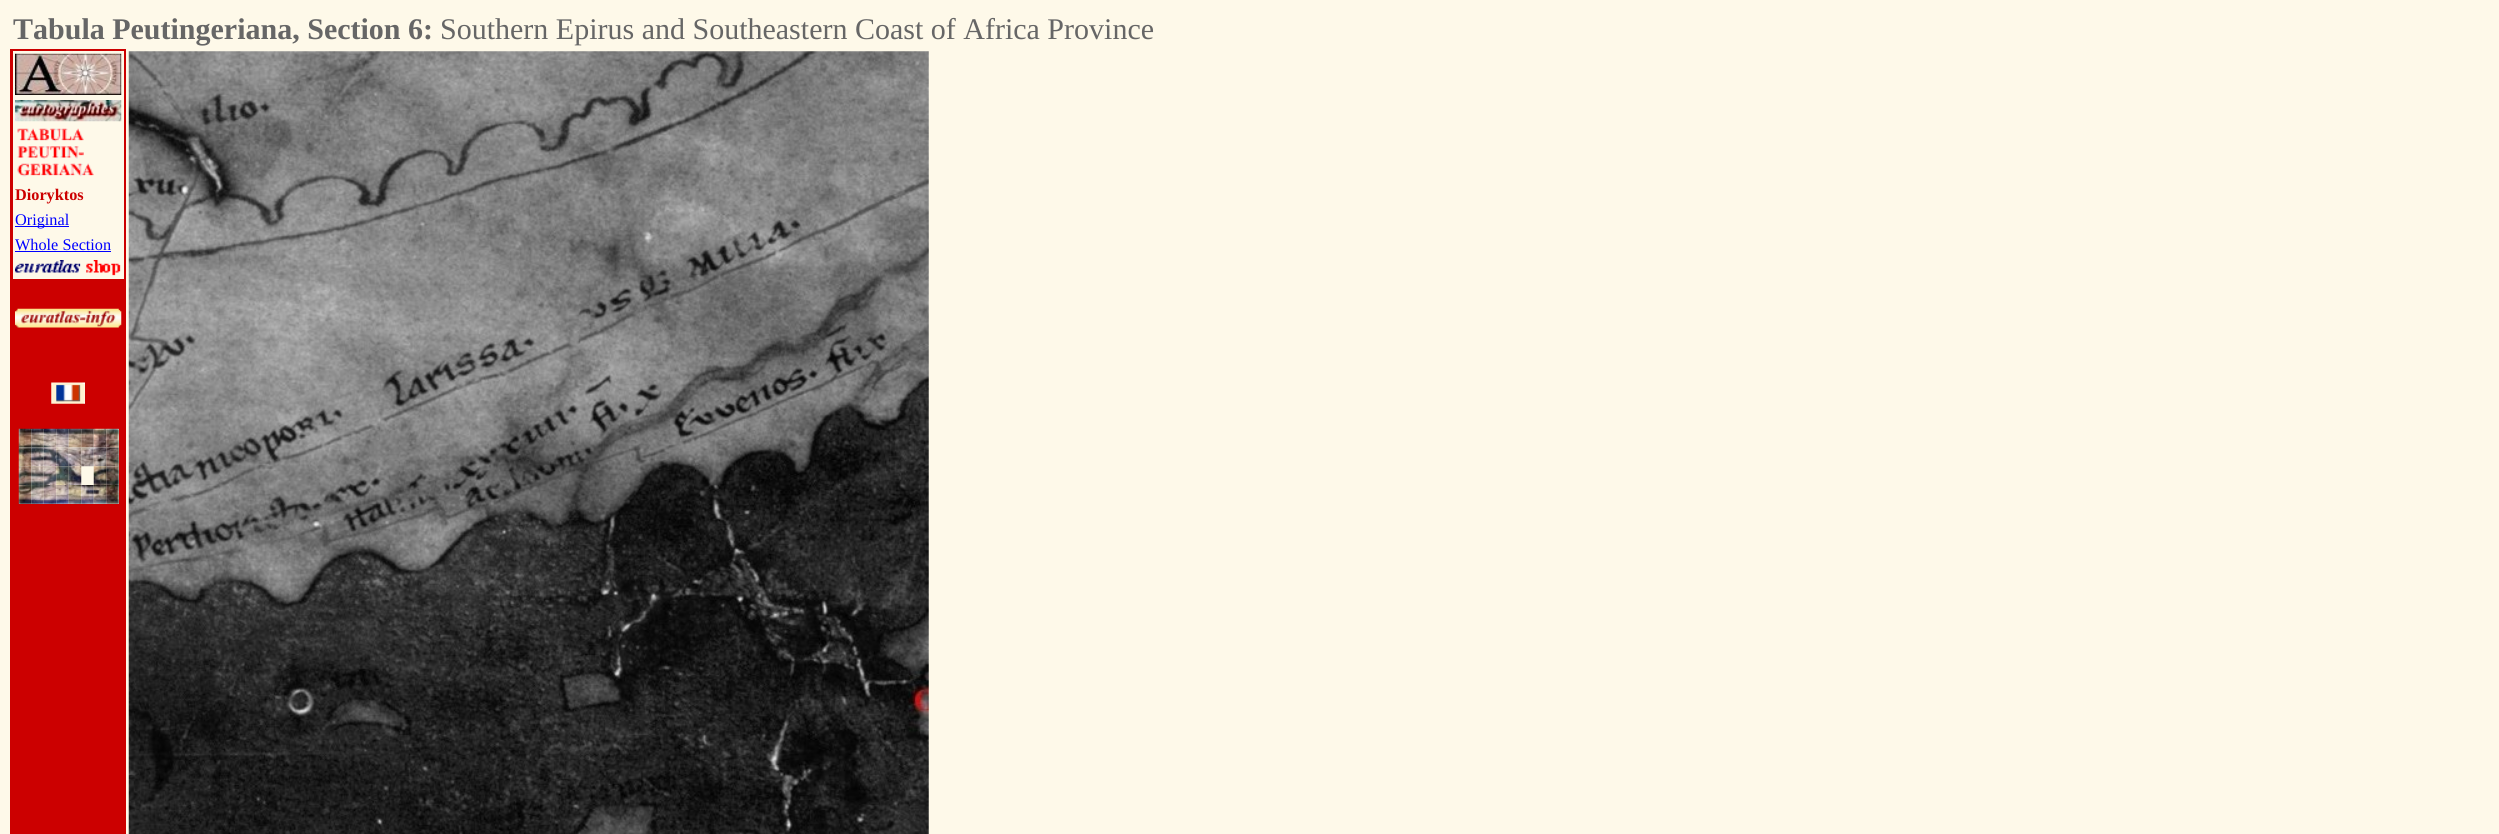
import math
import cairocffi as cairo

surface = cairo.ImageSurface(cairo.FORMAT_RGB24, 2499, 834)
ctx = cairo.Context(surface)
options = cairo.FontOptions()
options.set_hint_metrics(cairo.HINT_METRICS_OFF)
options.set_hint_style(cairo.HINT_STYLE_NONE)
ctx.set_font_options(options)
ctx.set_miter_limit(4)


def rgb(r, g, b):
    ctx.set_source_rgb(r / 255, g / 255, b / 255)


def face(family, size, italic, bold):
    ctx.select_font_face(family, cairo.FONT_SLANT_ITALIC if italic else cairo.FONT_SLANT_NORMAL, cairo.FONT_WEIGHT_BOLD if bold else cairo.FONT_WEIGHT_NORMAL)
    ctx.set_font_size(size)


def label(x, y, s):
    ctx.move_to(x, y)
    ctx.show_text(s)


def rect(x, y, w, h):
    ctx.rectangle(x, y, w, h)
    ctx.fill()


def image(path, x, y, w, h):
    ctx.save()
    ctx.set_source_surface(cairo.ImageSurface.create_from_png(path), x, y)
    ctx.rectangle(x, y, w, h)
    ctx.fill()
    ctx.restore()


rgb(254, 249, 233)
ctx.paint()
face('Liberation Serif', 30, 0, 1)
rgb(102, 102, 102)
label(13, 39, 'Tabula Peutingeriana, Section 6:')
face('Liberation Serif', 30, 0, 0)
label(440, 39, 'Southern Epirus and Southeastern Coast of Africa Province')
rgb(204, 0, 0)
rect(10, 49, 116, 785)
rgb(254, 249, 233)
rect(13, 51, 111, 228)
image('image0.png', 15, 53, 107, 42)
image('image1.png', 15, 100, 107, 22)
image('image2.png', 17, 128, 77, 49)
face('Liberation Serif', 16.25, 0, 1)
rgb(204, 0, 0)
label(15, 200, 'Dioryktos')
rgb(0, 0, 255)
rect(15, 226, 54, 1)
face('Liberation Serif', 16.25, 0, 0)
label(15, 225, 'Original')
label(15, 250, 'Whole Section')
rect(15, 251, 96, 1)
image('image3.png', 15, 260, 106, 16)
image('image4.png', 15, 308, 107, 20)
image('image5.png', 51, 382, 34, 22)
rgb(254, 249, 233)
rect(19, 429, 100, 75)
image('image6.png', 18, 428, 14, 20)
image('image7.png', 31, 428, 13, 20)
image('image8.png', 43, 428, 14, 20)
image('image9.png', 56, 428, 13, 20)
image('image10.png', 68, 428, 14, 20)
image('image11.png', 81, 428, 13, 20)
image('image12.png', 93, 428, 14, 20)
image('image13.png', 106, 428, 13, 20)
image('image14.png', 18, 447, 14, 20)
image('image15.png', 31, 447, 13, 20)
image('image16.png', 43, 447, 14, 20)
image('image17.png', 56, 447, 13, 20)
image('image18.png', 68, 447, 14, 20)
image('image19.png', 81, 447, 13, 20)
image('image20.png', 93, 447, 14, 20)
image('image21.png', 106, 447, 13, 20)
image('image22.png', 18, 466, 14, 19)
image('image23.png', 31, 466, 13, 19)
image('image24.png', 43, 466, 14, 19)
image('image25.png', 56, 466, 13, 19)
image('image26.png', 68, 466, 14, 19)
image('image27.png', 93, 466, 14, 19)
image('image28.png', 106, 466, 13, 19)
image('image29.png', 18, 485, 14, 19)
image('image30.png', 31, 485, 13, 19)
image('image31.png', 43, 485, 14, 19)
image('image32.png', 56, 485, 13, 19)
image('image33.png', 68, 485, 14, 19)
image('image34.png', 81, 485, 13, 19)
image('image35.png', 93, 485, 14, 19)
image('image36.png', 106, 485, 13, 19)
image('image37.png', 128, 51, 801, 783)
surface.write_to_png('render.png')
